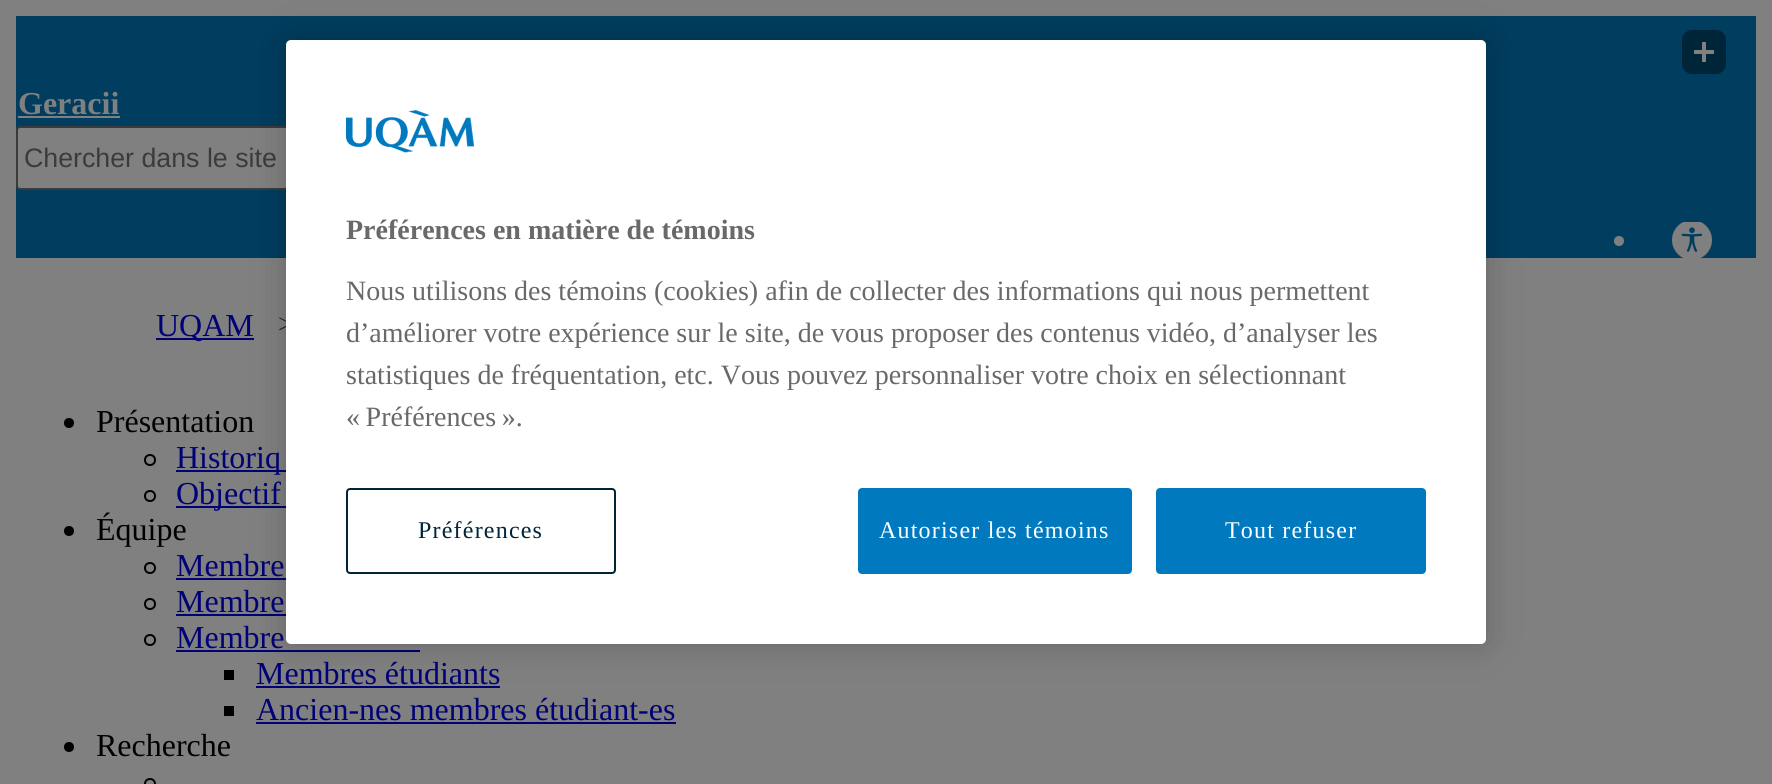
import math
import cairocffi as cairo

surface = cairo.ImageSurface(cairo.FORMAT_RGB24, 1772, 784)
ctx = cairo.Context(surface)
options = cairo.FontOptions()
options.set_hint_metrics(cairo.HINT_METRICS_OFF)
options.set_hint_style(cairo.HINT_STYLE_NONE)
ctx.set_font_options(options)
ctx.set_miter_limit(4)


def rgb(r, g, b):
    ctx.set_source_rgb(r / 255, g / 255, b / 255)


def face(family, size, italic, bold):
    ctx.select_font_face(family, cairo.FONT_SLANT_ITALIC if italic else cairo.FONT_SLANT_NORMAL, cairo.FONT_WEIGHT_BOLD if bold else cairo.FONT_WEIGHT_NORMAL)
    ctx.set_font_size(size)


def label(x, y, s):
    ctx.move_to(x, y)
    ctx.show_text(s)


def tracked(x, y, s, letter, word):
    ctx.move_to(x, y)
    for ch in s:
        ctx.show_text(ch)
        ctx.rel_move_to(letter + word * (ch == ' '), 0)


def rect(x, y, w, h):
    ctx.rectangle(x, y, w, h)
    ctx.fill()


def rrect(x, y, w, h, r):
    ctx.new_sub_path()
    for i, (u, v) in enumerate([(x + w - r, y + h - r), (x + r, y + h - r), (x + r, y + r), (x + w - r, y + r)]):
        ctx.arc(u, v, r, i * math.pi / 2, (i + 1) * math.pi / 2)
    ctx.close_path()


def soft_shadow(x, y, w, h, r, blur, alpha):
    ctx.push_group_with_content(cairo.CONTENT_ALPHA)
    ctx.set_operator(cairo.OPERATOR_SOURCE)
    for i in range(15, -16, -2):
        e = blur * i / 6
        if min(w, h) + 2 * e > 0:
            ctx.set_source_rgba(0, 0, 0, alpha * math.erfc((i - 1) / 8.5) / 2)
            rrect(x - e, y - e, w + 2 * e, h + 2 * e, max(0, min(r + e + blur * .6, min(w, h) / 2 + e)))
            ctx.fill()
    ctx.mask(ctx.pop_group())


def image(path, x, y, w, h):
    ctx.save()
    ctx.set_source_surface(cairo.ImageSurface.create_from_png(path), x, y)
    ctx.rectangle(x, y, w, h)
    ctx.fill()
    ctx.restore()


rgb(128, 128, 128)
ctx.paint()
rgb(0, 61, 95)
rect(16, 16, 1740, 242)
rgb(0, 37, 57)
rrect(1682, 30, 44, 44, 10)
ctx.fill()
image('image0.png', 1694, 42, 20, 20)
face('Liberation Serif', 32, 0, 1)
rgb(128, 128, 128)
label(18, 114, 'Geracii')
rect(18, 116, 102, 2)
rrect(17, 127, 368, 62, 3)
ctx.fill_preserve()
rgb(59, 59, 59)
ctx.stroke()
face('Liberation Sans', 26.75, 0, 0)
label(24, 167, 'Chercher dans le site')
image('image1.png', 1672, 222, 40, 36)
rgb(128, 128, 128)
ctx.arc(1619, 241, 5, 0, 2 * math.pi)
ctx.fill()
image('image2.png', 279, 317, 7, 14)
rgb(0, 0, 119)
rect(156, 338, 98, 2)
face('Liberation Serif', 32, 0, 0)
label(156, 336, 'UQAM')
rgb(0, 0, 0)
ctx.new_path()
ctx.arc(69, 423, 5, 0, 2 * math.pi)
ctx.fill()
label(96, 432, 'Présentation')
ctx.new_path()
ctx.arc(150, 460, 5, 0, 2 * math.pi)
ctx.stroke()
rgb(0, 0, 119)
rect(176, 470, 110, 2)
label(176, 468, 'Historiq')
ctx.new_path()
ctx.arc(150, 496, 5, 0, 2 * math.pi)
rgb(0, 0, 0)
ctx.stroke()
rgb(0, 0, 119)
rect(176, 506, 118, 2)
label(176, 504, 'Objectif')
rgb(0, 0, 0)
ctx.new_path()
ctx.arc(69, 531, 5, 0, 2 * math.pi)
ctx.fill()
label(96, 540, 'Équipe')
ctx.new_path()
ctx.arc(150, 568, 5, 0, 2 * math.pi)
ctx.stroke()
rgb(0, 0, 119)
label(176, 576, 'Membre')
rect(176, 578, 110, 2)
ctx.new_path()
ctx.arc(150, 604, 5, 0, 2 * math.pi)
rgb(0, 0, 0)
ctx.stroke()
rgb(0, 0, 119)
label(176, 612, 'Membre')
rect(176, 614, 110, 2)
ctx.new_path()
ctx.arc(150, 640, 5, 0, 2 * math.pi)
rgb(0, 0, 0)
ctx.stroke()
rgb(0, 0, 119)
label(176, 648, 'Membre')
rect(176, 650, 244, 2)
rgb(0, 0, 0)
rect(224, 670, 10, 10)
rgb(0, 0, 119)
label(256, 684, 'Membres étudiants')
rect(256, 686, 244, 2)
rgb(0, 0, 0)
rect(224, 706, 10, 10)
rgb(0, 0, 119)
label(256, 720, 'Ancien-nes membres étudiant-es')
rect(256, 722, 420, 2)
rgb(0, 0, 0)
ctx.new_path()
ctx.arc(69, 747, 5, 0, 2 * math.pi)
ctx.fill()
label(96, 756, 'Recherche')
ctx.new_path()
ctx.arc(150, 784, 5, 0, 2 * math.pi)
ctx.stroke()
rgb(0, 0, 0)
soft_shadow(286, 40, 1200, 604, 5, 18, 0.2)
rgb(255, 255, 255)
rrect(286, 40, 1200, 604, 5)
ctx.fill()
image('image3.png', 346, 110, 128, 43)
face('Liberation Serif', 28, 0, 1)
rgb(105, 105, 105)
label(346, 239, 'Préférences en matière de témoins')
face('Liberation Serif', 28, 0, 0)
label(346, 300, 'Nous utilisons des témoins (cookies) afin de collecter des informations qui nous permettent')
label(346, 342, 'd’améliorer votre expérience sur le site, de vous proposer des contenus vidéo, d’analyser les')
label(346, 384, 'statistiques de fréquentation, etc. Vous pouvez personnaliser votre choix en sélectionnant')
label(346, 426, '« Préférences ».')
rrect(347, 489, 268, 84, 3)
rgb(0, 37, 57)
ctx.stroke()
face('Liberation Serif', 24, 0, 0)
tracked(418, 538, 'Préférences', 1.2, 0)
rgb(0, 121, 190)
rrect(859, 489, 272, 84, 3)
ctx.fill_preserve()
ctx.stroke()
rgb(255, 255, 255)
tracked(879, 538, 'Autoriser les témoins', 1.2, 0)
rgb(0, 121, 190)
rrect(1157, 489, 268, 84, 3)
ctx.fill_preserve()
ctx.stroke()
rgb(255, 255, 255)
tracked(1225, 538, 'Tout refuser', 1.2, 0)
surface.write_to_png('render.png')
